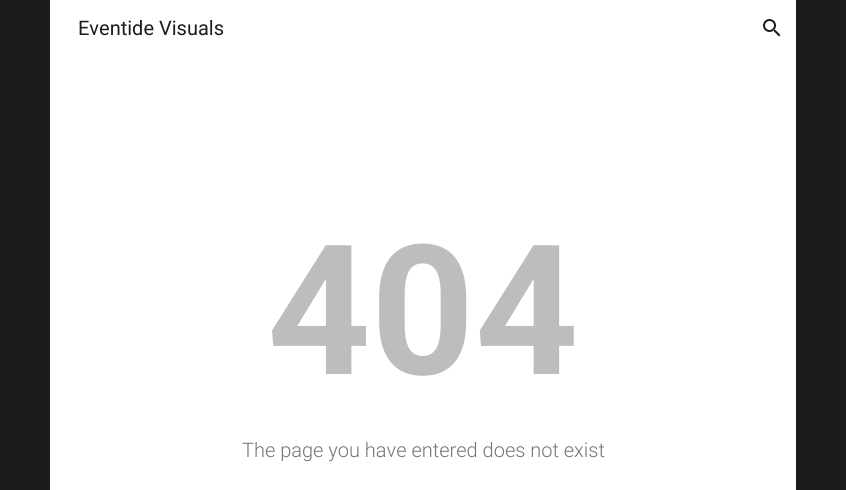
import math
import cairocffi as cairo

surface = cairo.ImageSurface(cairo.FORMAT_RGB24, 846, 490)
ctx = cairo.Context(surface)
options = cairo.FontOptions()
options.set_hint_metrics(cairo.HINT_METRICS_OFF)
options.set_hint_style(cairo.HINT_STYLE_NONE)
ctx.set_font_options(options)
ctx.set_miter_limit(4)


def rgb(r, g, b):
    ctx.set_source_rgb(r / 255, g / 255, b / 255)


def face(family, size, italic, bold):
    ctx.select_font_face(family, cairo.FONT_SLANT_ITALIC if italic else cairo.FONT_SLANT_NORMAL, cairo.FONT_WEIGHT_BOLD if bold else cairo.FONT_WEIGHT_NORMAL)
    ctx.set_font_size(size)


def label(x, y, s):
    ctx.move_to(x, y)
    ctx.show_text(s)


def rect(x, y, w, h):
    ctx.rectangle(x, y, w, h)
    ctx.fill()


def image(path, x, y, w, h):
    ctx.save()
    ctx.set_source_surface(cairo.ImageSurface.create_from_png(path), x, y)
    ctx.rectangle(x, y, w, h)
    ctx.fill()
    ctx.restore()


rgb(28, 28, 28)
ctx.paint()
rgb(255, 255, 255)
rect(50, 0, 746, 490)
face('Roboto', 20, 0, 0)
rgb(28, 28, 28)
label(78, 35, 'Eventide Visuals')
image('image0.png', 763, 19, 18, 18)
face('Roboto', 181, 0, 1)
rgb(189, 189, 189)
label(267, 374, '404')
face('Roboto Light', 20, 0, 0)
rgb(117, 117, 117)
label(242, 457, 'The page you have entered does not exist')
surface.write_to_png('render.png')
